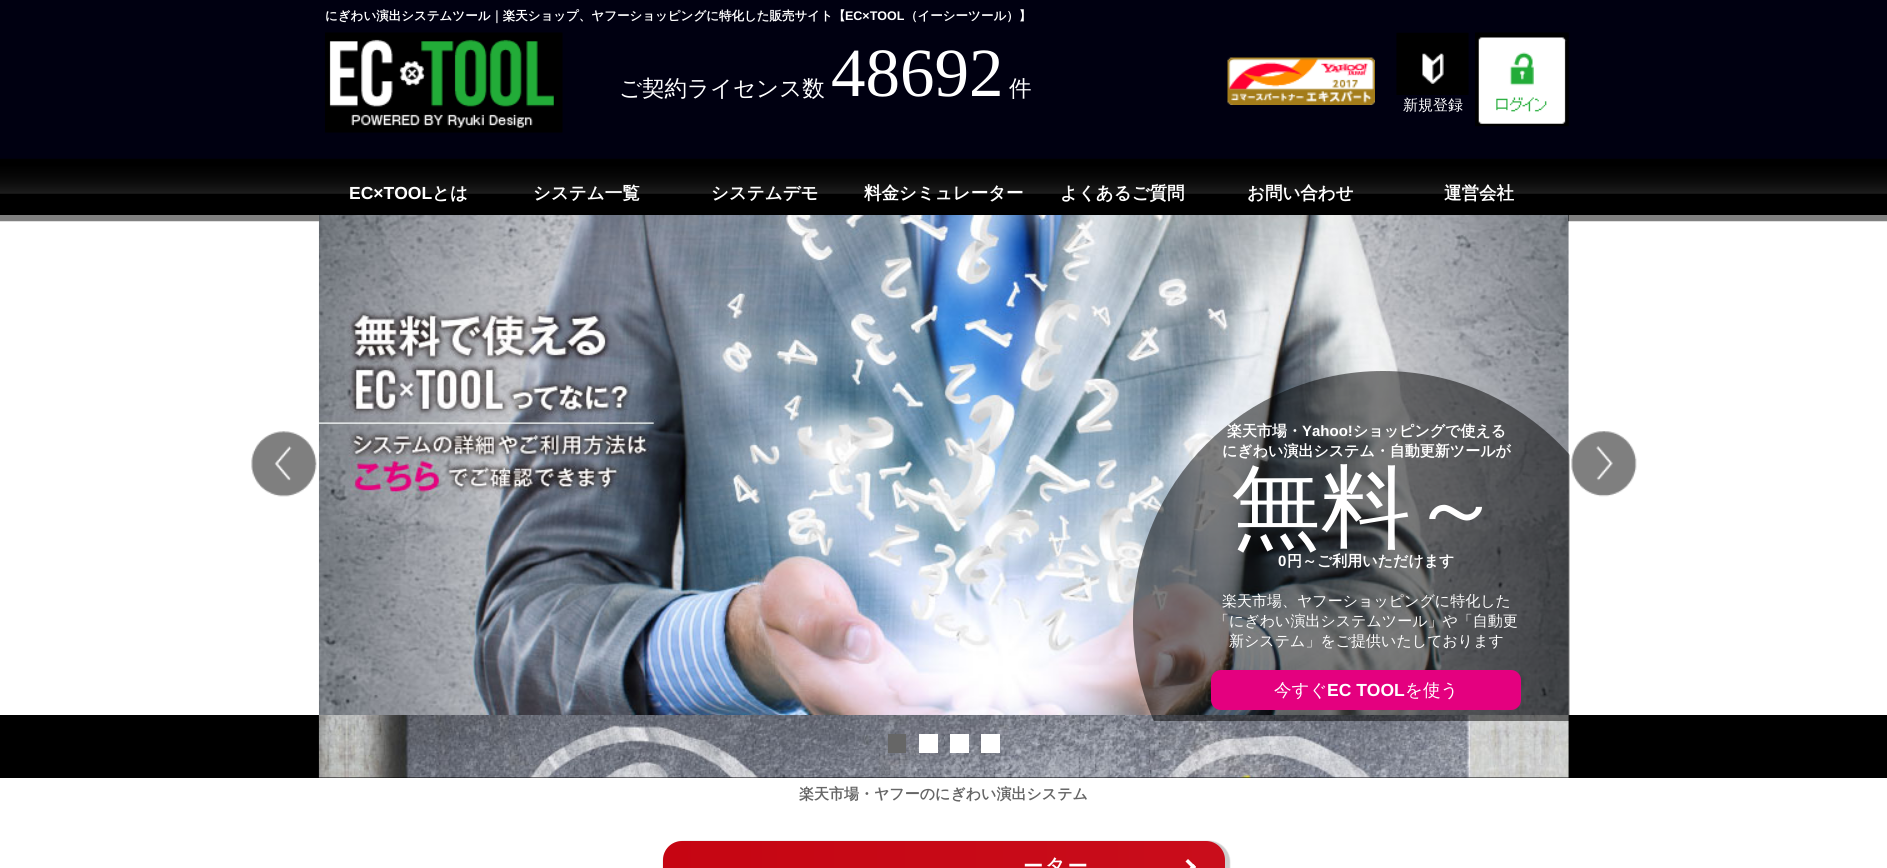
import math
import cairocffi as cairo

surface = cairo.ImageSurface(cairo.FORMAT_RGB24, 1887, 868)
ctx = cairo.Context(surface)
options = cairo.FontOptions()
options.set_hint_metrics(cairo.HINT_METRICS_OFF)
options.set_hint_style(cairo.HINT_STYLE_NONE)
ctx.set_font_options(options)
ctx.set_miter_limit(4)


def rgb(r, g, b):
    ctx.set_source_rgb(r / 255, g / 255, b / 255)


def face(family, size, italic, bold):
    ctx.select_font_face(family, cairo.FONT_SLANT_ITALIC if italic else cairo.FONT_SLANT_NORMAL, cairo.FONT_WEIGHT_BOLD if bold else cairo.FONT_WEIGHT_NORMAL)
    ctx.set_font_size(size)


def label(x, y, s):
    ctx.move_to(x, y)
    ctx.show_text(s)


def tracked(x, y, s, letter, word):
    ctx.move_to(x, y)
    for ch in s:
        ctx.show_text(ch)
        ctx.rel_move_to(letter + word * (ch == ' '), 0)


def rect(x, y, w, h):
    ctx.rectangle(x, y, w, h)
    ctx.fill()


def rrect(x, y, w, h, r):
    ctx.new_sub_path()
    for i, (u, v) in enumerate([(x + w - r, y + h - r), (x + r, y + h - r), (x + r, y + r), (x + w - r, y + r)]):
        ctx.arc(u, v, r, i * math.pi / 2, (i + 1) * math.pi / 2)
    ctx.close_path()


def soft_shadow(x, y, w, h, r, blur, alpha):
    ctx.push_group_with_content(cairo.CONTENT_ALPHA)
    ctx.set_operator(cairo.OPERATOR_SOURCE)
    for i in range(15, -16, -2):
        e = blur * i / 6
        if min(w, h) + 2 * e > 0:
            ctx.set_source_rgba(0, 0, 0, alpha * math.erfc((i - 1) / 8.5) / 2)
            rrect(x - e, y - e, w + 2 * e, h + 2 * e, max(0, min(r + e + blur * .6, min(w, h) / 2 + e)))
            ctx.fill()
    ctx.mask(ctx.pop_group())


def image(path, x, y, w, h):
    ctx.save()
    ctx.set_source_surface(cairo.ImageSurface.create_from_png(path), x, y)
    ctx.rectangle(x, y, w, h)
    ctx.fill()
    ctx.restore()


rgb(255, 255, 255)
ctx.paint()
rgb(0, 0, 17)
rect(0, 0, 1887, 159)
face('WenQuanYi Zen Hei', 12.5, 0, 1)
rgb(255, 255, 255)
label(325, 20, 'にぎわい演出システムツール｜楽天ショップ、ヤフーショッピングに特化した販売サイト【')
face('Liberation Sans', 12.5, 0, 1)
label(845, 20, 'EC×TOOL')
face('WenQuanYi Zen Hei', 12.5, 0, 1)
label(905, 20, '（イーシーツール）】')
image('image0.png', 325, 32, 238, 101)
face('WenQuanYi Zen Hei Medium', 22.5, 0, 0)
label(619, 96, 'ご契約ライセンス数')
face('Liberation Serif', 69, 0, 0)
label(831, 96, '48692')
face('WenQuanYi Zen Hei Medium', 22.5, 0, 0)
label(1009, 96, '件')
image('image1.png', 1227, 57, 148, 48)
image('image2.png', 1396, 32, 73, 63)
face('WenQuanYi Zen Hei Medium', 15, 0, 0)
label(1403, 110, '新規登録')
image('image3.png', 1475, 32, 94, 95)
image('image4.png', 0, 158, 1887, 64)
face('Liberation Sans', 17.5, 0, 1)
label(349, 199, 'EC×TOOL')
face('WenQuanYi Zen Hei', 17.5, 0, 1)
label(432, 199, 'とは')
label(533, 199, 'システム一覧')
label(711, 199, 'システムデモ')
label(864, 199, '料金シミュレーター')
label(1060, 199, 'よくあるご質問')
label(1247, 199, 'お問い合わせ')
label(1444, 199, '運営会社')
image('image6.png', 318, 215, 1251, 500)
ctx.set_source_rgba(1, 1, 1, 0.5)
rect(0, 215, 319, 500)
image('image5.png', 251, 431, 66, 66)
rgb(0, 0, 0)
rect(0, 715, 1887, 63)
image('image7.png', 318, 715, 1251, 63)
rgb(0, 0, 0)
soft_shadow(663, 841, 567, 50, 21, 0.5, 0.2)
gradient = cairo.LinearGradient(663, 866, 1225, 866)
gradient.add_color_stop_rgba(0, 0.776, 0.02, 0.071, 1)
gradient.add_color_stop_rgba(1, 0.788, 0.051, 0.106, 1)
ctx.set_source(gradient)
rrect(663, 841, 562, 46, 19)
ctx.fill()
rgb(255, 255, 255)
ctx.new_path()
ctx.move_to(1188, 859)
ctx.line_to(1196, 867)
ctx.line_to(1193.5, 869.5)
ctx.line_to(1185.5, 861.5)
ctx.close_path()
ctx.fill()
ctx.new_path()
ctx.move_to(1193.5, 864)
ctx.line_to(1196, 867)
ctx.line_to(1188, 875)
ctx.line_to(1185.5, 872)
ctx.close_path()
ctx.fill()
ctx.save()
ctx.rectangle(1070, 221, 500, 500)
ctx.clip()
ctx.set_source_rgba(0, 0, 0, 0.5)
ctx.arc(1383, 621, 250, 0, 2 * math.pi)
ctx.fill()
ctx.restore()
ctx.set_source_rgba(1, 1, 1, 0.5)
rect(1569, 215, 318, 500)
image('image8.png', 1571, 431, 66, 66)
rgb(102, 102, 102)
rect(888, 734, 18, 19)
rgb(255, 255, 255)
rect(919, 734, 19, 19)
rect(950, 734, 19, 19)
rect(981, 734, 19, 19)
face('WenQuanYi Zen Hei', 15, 0, 1)
label(1227, 436, '楽天市場・')
face('Liberation Sans', 15, 0, 1)
label(1302, 436, 'Yahoo!')
face('WenQuanYi Zen Hei', 15, 0, 1)
label(1353, 436, 'ショッピングで使える')
label(1222, 456, 'にぎわい演出システム・自動更新ツールが')
face('WenQuanYi Zen Hei Medium', 90, 0, 0)
label(1231, 538, '無料～')
face('Liberation Sans', 15, 0, 1)
label(1278, 566, '0')
face('WenQuanYi Zen Hei', 15, 0, 1)
label(1287, 566, '円～ご利用いただけます')
face('WenQuanYi Zen Hei Medium', 15, 0, 0)
label(1222, 606, '楽天市場、ヤフーショッピングに特化した')
label(1214, 626, '「にぎわい演出システムツール」や「自動更')
label(1229, 646, '新システム」をご提供いたしております')
rgb(228, 0, 127)
rrect(1211, 670, 310, 40, 10)
ctx.fill()
face('WenQuanYi Zen Hei Medium', 17.5, 0, 0)
rgb(255, 255, 255)
label(1274, 696, '今すぐ')
face('Liberation Sans', 17.5, 0, 1)
label(1327, 696, 'EC TOOL')
face('WenQuanYi Zen Hei Medium', 17.5, 0, 0)
label(1405, 696, 'を使う')
face('WenQuanYi Zen Hei', 15, 0, 1)
rgb(102, 102, 102)
label(799, 799, '楽天市場・ヤフーのにぎわい演出システム')
face('WenQuanYi Zen Hei', 20, 0, 1)
rgb(255, 255, 255)
tracked(1023, 873, 'ーター', 2, 0)
surface.write_to_png('render.png')
